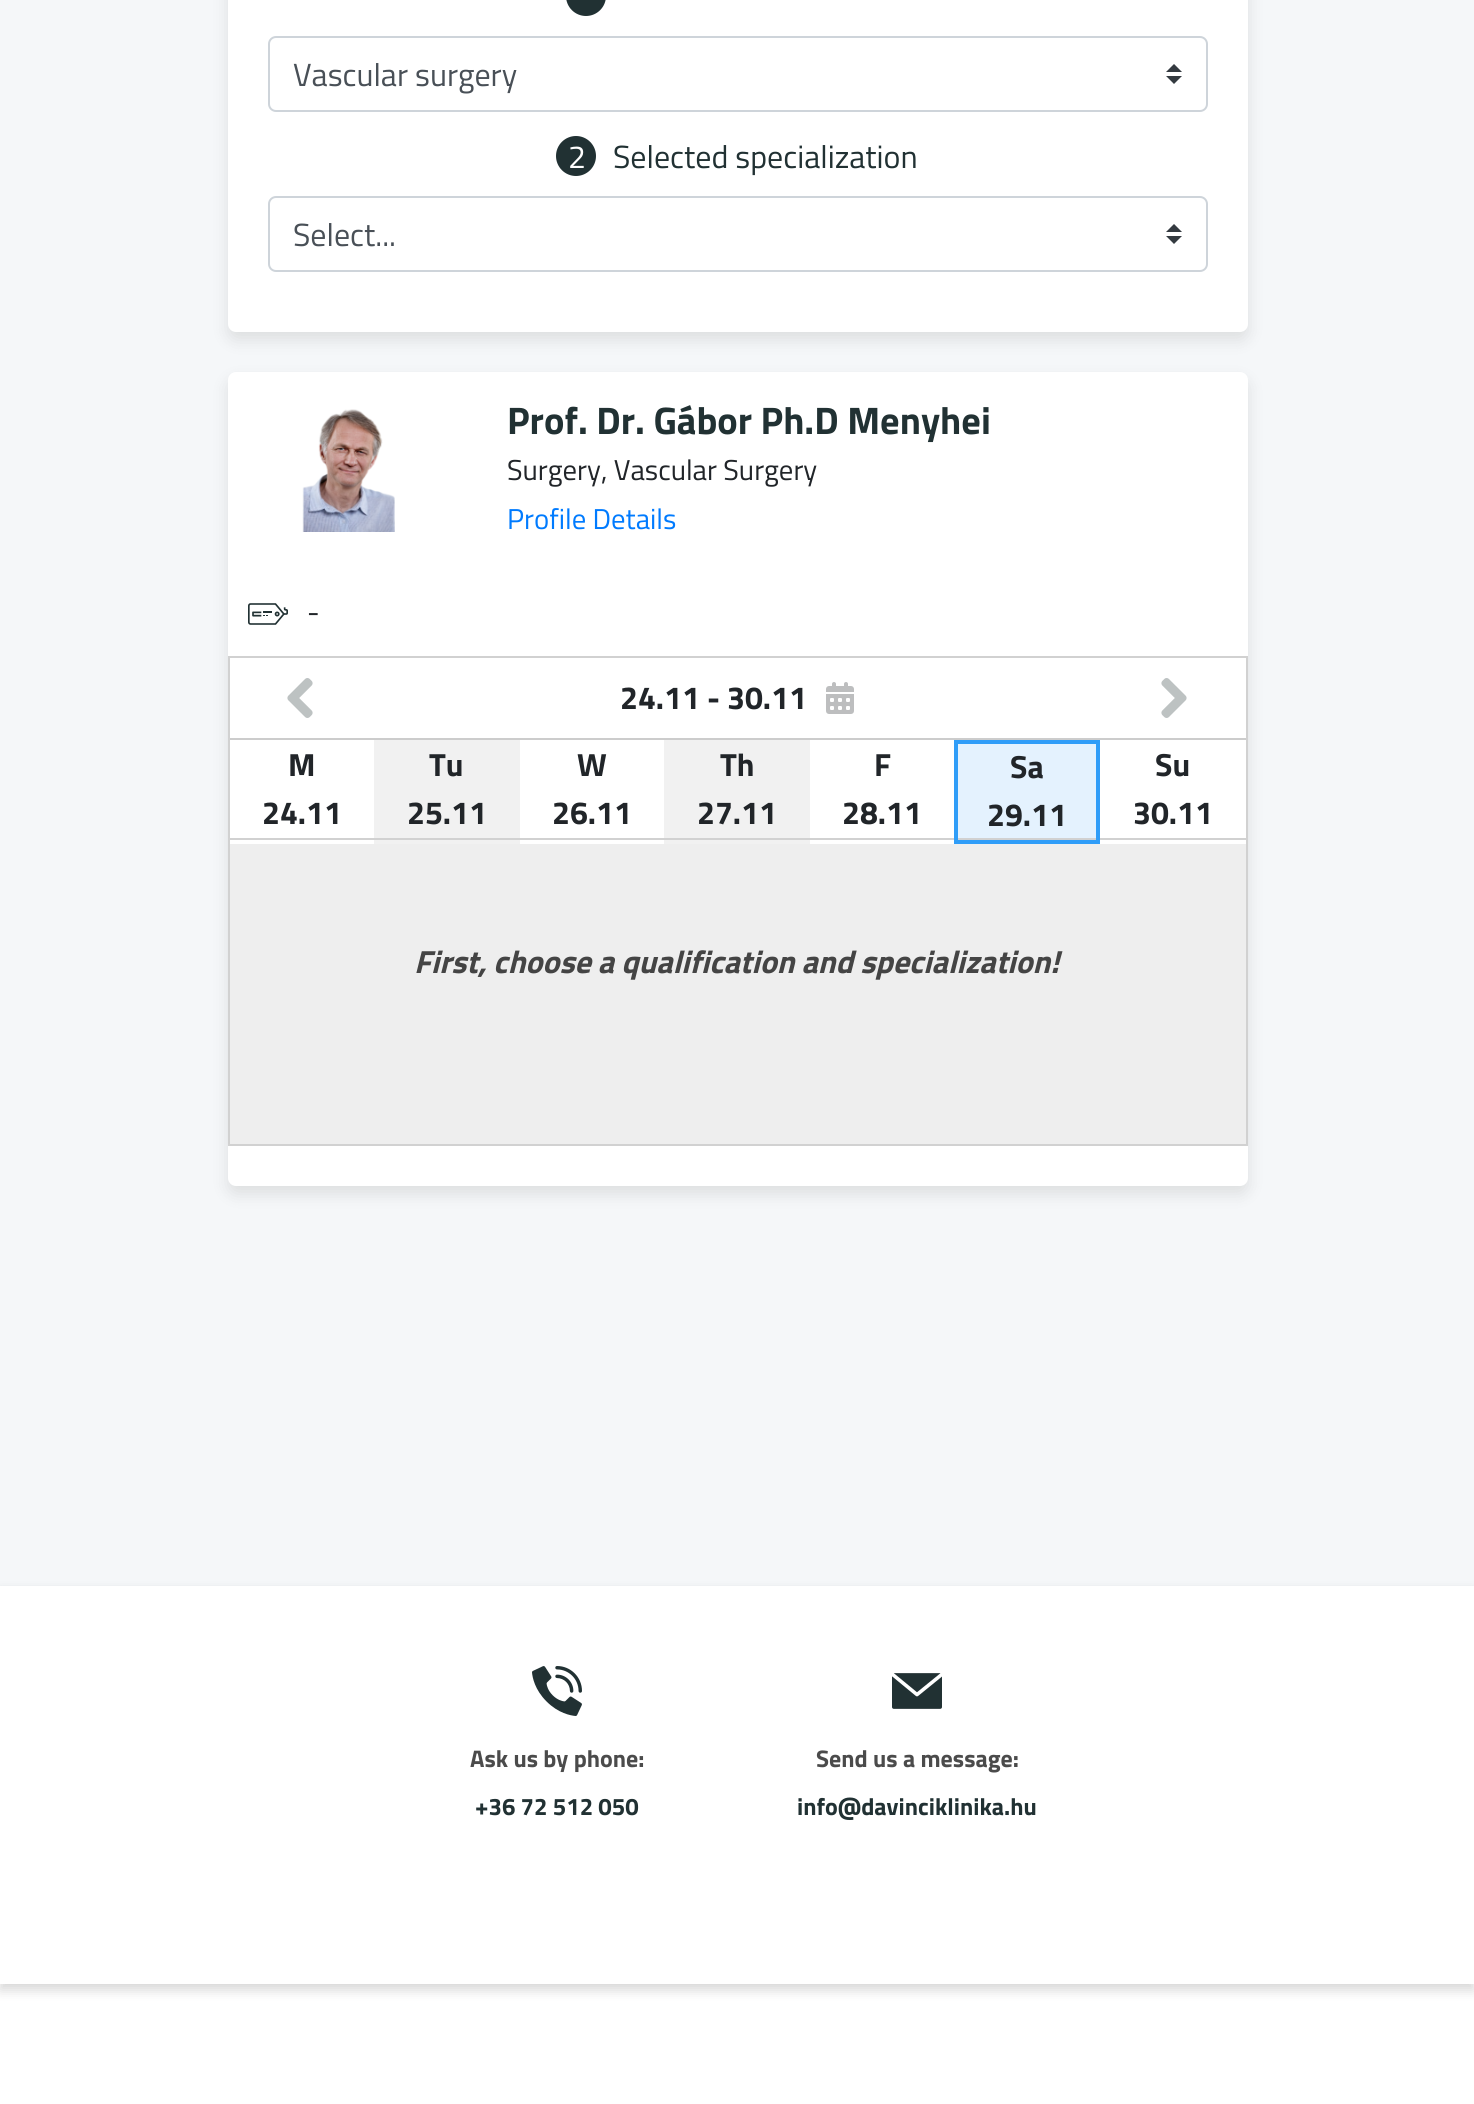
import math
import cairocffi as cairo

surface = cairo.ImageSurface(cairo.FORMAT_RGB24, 1474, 2104)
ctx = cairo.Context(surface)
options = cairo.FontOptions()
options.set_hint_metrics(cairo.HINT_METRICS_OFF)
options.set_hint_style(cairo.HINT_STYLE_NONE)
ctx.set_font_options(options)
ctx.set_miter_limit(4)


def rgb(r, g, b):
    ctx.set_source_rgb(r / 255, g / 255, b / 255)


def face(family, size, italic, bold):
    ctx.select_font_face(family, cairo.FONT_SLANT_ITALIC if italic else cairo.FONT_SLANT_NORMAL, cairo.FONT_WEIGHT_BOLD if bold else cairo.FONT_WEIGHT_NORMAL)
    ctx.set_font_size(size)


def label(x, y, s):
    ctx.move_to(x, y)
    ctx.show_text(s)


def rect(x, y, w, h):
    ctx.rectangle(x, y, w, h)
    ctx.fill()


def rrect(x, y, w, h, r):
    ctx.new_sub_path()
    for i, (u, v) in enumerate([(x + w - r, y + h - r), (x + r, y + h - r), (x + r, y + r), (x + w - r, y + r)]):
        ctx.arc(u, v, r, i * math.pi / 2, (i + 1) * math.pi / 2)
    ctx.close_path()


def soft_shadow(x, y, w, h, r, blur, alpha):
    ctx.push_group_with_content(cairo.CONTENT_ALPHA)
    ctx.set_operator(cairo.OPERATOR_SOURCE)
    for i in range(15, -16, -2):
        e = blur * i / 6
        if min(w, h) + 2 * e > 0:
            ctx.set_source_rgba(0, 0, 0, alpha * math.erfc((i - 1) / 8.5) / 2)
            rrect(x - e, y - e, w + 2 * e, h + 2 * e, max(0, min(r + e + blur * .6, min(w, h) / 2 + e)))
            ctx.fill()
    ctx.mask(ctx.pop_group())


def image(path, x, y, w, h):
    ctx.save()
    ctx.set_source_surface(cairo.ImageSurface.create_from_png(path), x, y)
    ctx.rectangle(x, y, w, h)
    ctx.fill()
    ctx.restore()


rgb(255, 255, 255)
ctx.paint()
rgb(245, 247, 249)
rect(0, 0, 1474, 1586)
rgb(0, 0, 0)
soft_shadow(228, -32, 1020, 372, 8, 8, 0.1)
rgb(255, 255, 255)
rrect(228, -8, 1020, 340, 8)
ctx.fill()
rgb(33, 49, 51)
rrect(566, -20, 40, 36, 20)
ctx.fill()
rgb(52, 58, 64)
ctx.new_path()
ctx.move_to(1174, 64)
ctx.line_to(1166, 72)
ctx.line_to(1182, 72)
ctx.close_path()
ctx.move_to(1174, 84)
ctx.line_to(1166, 76)
ctx.line_to(1182, 76)
ctx.close_path()
ctx.fill()
rrect(269, 37, 938, 74, 7)
rgb(206, 212, 218)
ctx.stroke()
face('Titillium Web', 32, 0, 0)
rgb(73, 80, 87)
label(293, 86, 'Vascular surgery')
rgb(33, 49, 51)
ctx.new_path()
ctx.arc(576, 156, 20, 0, 2 * math.pi)
ctx.fill()
rgb(255, 255, 255)
label(568, 168, '2')
rgb(33, 49, 51)
label(613, 168, 'Selected specialization')
rgb(52, 58, 64)
ctx.new_path()
ctx.move_to(1174, 224)
ctx.line_to(1166, 232)
ctx.line_to(1182, 232)
ctx.close_path()
ctx.move_to(1174, 244)
ctx.line_to(1166, 236)
ctx.line_to(1182, 236)
ctx.close_path()
ctx.fill()
rrect(269, 197, 938, 74, 7)
rgb(206, 212, 218)
ctx.stroke()
rgb(73, 80, 87)
label(293, 246, 'Select...')
rgb(0, 0, 0)
soft_shadow(228, 380, 1020, 814, 8, 8, 0.1)
rgb(255, 255, 255)
rrect(228, 372, 1020, 814, 8)
ctx.fill()
image('image0.png', 302, 409, 93, 123)
face('Titillium Web', 38.4, 0, 1)
rgb(33, 49, 51)
label(507, 434, 'Prof. Dr. Gábor Ph.D Menyhei')
face('Titillium Web', 28.75, 0, 0)
rgb(33, 37, 41)
label(507, 480, 'Surgery, Vascular Surgery')
rgb(0, 123, 255)
label(507, 529, 'Profile Details')
image('image1.png', 248, 603, 40, 22)
rgb(33, 37, 41)
label(307, 622, '-')
ctx.rectangle(229, 657, 1018, 488)
rgb(209, 209, 209)
ctx.stroke()
rgb(204, 204, 204)
rect(230, 738, 1016, 2)
image('image2.png', 287, 678, 26, 40)
face('Titillium Web', 32, 0, 1)
rgb(33, 37, 41)
label(620, 709, '24.11 - 30.11')
image('image3.png', 826, 682, 28, 32)
image('image4.png', 1161, 678, 26, 40)
rgb(209, 209, 209)
rect(230, 838, 144, 2)
rgb(33, 37, 41)
label(288, 776, 'M')
label(262, 824, '24.11')
rgb(241, 241, 241)
rect(374, 740, 146, 104)
rgb(209, 209, 209)
rect(374, 838, 290, 2)
rgb(33, 37, 41)
label(429, 776, 'Tu')
label(407, 824, '25.11')
label(577, 776, 'W')
label(552, 824, '26.11')
rgb(241, 241, 241)
rect(664, 740, 146, 104)
rgb(209, 209, 209)
rect(664, 838, 290, 2)
rgb(33, 37, 41)
label(720, 776, 'Th')
label(697, 824, '27.11')
label(874, 776, 'F')
label(842, 824, '28.11')
rgb(228, 242, 254)
rect(958, 744, 138, 94)
ctx.rectangle(956, 742, 142, 100)
rgb(47, 157, 248)
ctx.set_line_width(4)
ctx.stroke()
rgb(209, 209, 209)
rect(958, 838, 138, 2)
rgb(33, 37, 41)
label(1010, 778, 'Sa')
label(987, 826, '29.11')
rgb(209, 209, 209)
rect(1100, 838, 146, 2)
rgb(33, 37, 41)
label(1155, 776, 'Su')
label(1133, 824, '30.11')
rgb(238, 238, 238)
rect(230, 844, 1016, 300)
face('Titillium Web', 32, 1, 1)
rgb(68, 68, 68)
label(414, 973, 'First, choose a qualification and specialization!')
ctx.save()
ctx.set_fill_rule(cairo.FILL_RULE_EVEN_ODD)
ctx.new_path()
ctx.move_to(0, 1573)
ctx.line_to(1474, 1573)
ctx.line_to(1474, 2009)
ctx.line_to(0, 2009)
ctx.close_path()
ctx.move_to(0, 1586)
ctx.line_to(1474, 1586)
ctx.line_to(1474, 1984)
ctx.line_to(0, 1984)
ctx.close_path()
ctx.clip()
rgb(0, 0, 0)
soft_shadow(0, 1592, 1474, 398, 0, 6, 0.16)
ctx.restore()
image('image5.png', 532, 1666, 50, 50)
face('Titillium Web', 24, 0, 1)
rgb(75, 75, 75)
label(470, 1767, 'Ask us by phone:')
rgb(33, 49, 51)
label(475, 1815, '+36 72 512 050')
image('image6.png', 892, 1673, 50, 36)
rgb(75, 75, 75)
label(816, 1767, 'Send us a message:')
rgb(33, 49, 51)
label(797, 1815, 'info@davinciklinika.hu')
surface.write_to_png('render.png')
